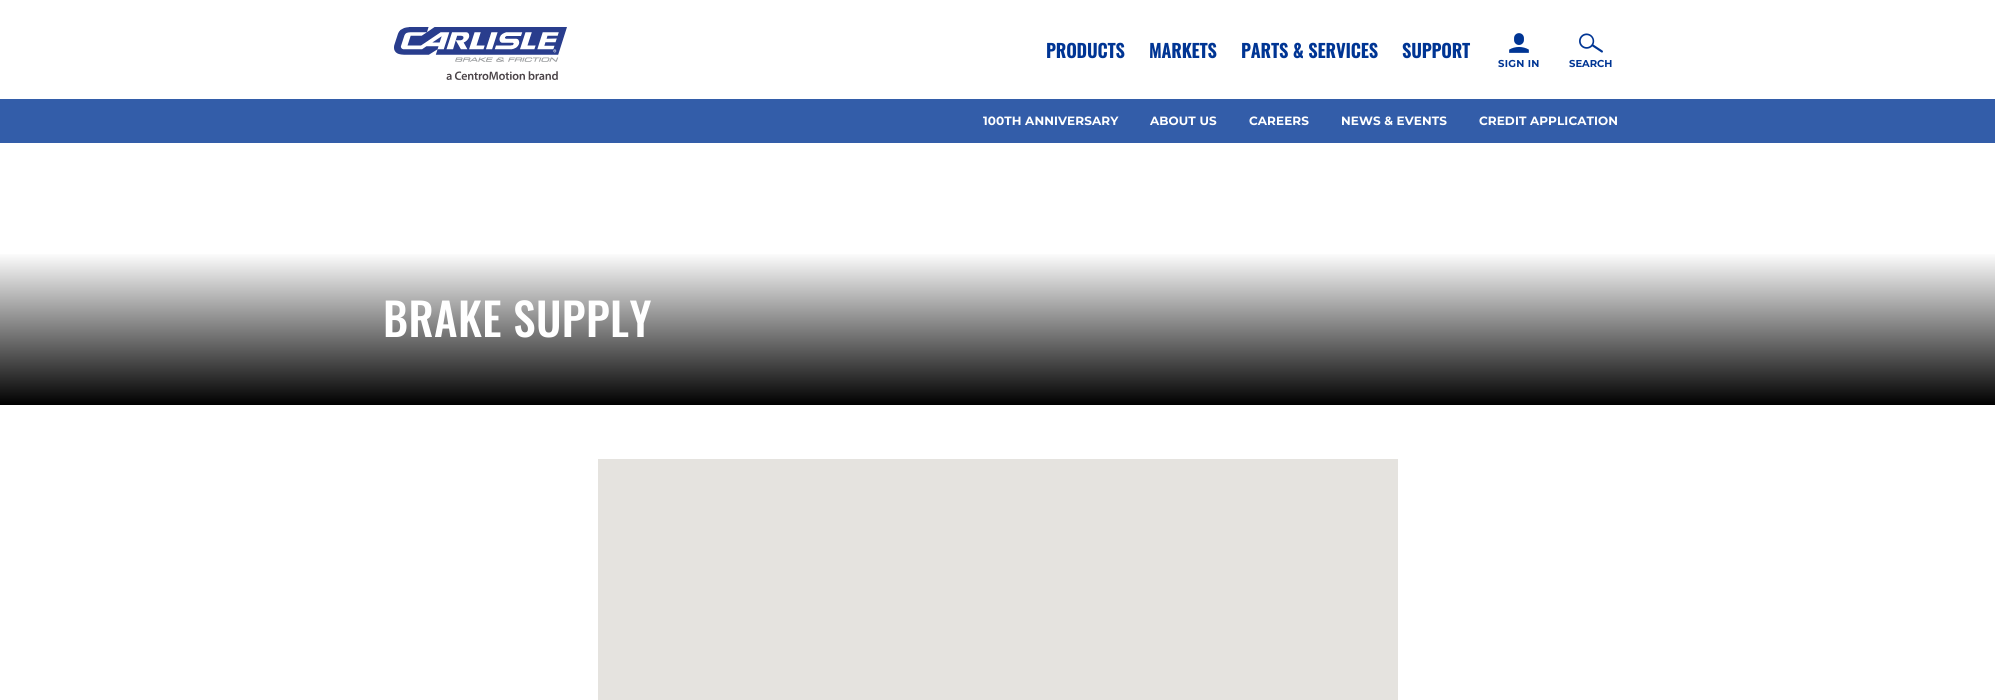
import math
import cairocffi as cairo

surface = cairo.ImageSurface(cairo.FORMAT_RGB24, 1995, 700)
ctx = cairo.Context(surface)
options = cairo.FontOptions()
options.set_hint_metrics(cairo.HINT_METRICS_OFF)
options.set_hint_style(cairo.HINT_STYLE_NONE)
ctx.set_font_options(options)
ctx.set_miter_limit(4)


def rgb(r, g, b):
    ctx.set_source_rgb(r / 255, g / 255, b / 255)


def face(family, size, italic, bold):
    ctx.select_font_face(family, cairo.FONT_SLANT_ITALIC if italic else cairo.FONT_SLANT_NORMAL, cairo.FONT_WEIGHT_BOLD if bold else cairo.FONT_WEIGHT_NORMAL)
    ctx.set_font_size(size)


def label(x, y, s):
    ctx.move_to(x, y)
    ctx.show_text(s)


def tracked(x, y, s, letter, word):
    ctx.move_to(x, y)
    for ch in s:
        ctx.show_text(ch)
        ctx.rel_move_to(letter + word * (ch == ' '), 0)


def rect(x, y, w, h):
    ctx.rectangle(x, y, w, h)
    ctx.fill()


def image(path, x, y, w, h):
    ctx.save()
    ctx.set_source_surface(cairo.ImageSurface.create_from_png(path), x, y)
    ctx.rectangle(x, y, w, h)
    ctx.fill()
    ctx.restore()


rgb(255, 255, 255)
ctx.paint()
image('image0.png', 394, 27, 173, 53)
face('Oswald', 18, 0, 1)
rgb(0, 53, 148)
tracked(1046, 58, 'PRODUCTS', 0.3, 0)
tracked(1149, 58, 'MARKETS', 0.3, 0)
tracked(1241, 58, 'PARTS & SERVICES', 0.3, 0)
tracked(1402, 58, 'SUPPORT', 0.3, 0)
image('image1.png', 1509, 33, 20, 20)
face('Montserrat', 10, 0, 1)
tracked(1498, 67, 'SIGN IN', 0.3, 0)
image('image2.png', 1579, 33, 24, 20)
label(1569, 67, 'SEARCH')
rgb(51, 93, 169)
rect(0, 99, 1995, 44)
face('Montserrat', 12, 0, 1)
rgb(255, 255, 255)
tracked(983, 125, '100TH ANNIVERSARY', 0.1, 0)
tracked(1150, 125, 'ABOUT US', 0.1, 0)
tracked(1249, 125, 'CAREERS', 0.1, 0)
tracked(1341, 125, 'NEWS & EVENTS', 0.1, 0)
tracked(1479, 125, 'CREDIT APPLICATION', 0.1, 0)
gradient = cairo.LinearGradient(998, 99, 998, 405)
gradient.add_color_stop_rgba(0.5, 1, 1, 1, 1)
gradient.add_color_stop_rgba(1, 0, 0, 0, 1)
ctx.set_source(gradient)
rect(0, 254, 1995, 151)
face('Oswald Medium', 45, 0, 0)
rgb(255, 255, 255)
tracked(383, 337, 'BRAKE SUPPLY', 0.4, 0)
rgb(229, 227, 223)
rect(598, 459, 800, 241)
surface.write_to_png('render.png')
